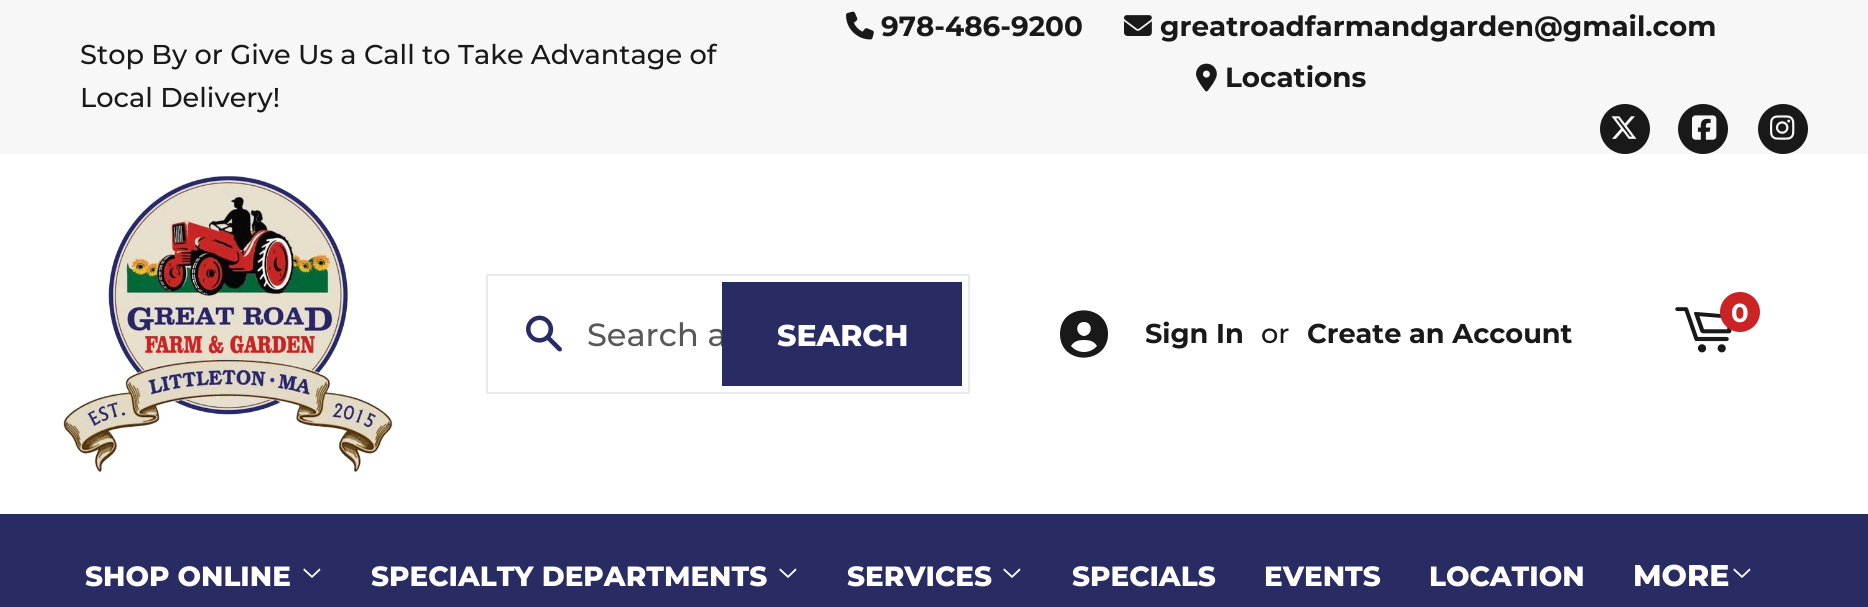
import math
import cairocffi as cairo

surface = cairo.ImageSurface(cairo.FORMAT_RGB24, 1868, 607)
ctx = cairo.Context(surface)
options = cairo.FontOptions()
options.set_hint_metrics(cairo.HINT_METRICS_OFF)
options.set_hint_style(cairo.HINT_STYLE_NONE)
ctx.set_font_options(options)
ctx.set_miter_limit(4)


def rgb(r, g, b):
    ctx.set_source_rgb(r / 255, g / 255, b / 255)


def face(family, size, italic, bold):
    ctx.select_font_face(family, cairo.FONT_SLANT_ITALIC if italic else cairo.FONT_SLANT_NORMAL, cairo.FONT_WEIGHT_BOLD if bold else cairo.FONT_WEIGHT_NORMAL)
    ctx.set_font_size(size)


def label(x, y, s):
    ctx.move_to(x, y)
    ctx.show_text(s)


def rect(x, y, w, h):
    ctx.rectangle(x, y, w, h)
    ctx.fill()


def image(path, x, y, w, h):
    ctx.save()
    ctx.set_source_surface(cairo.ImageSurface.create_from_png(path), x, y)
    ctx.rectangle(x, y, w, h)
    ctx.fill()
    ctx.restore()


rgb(255, 255, 255)
ctx.paint()
rgb(247, 247, 247)
rect(0, 0, 1868, 154)
face('Montserrat Medium', 27.2, 0, 0)
rgb(25, 25, 25)
label(80, 64, 'Stop By or Give Us a Call to Take Advantage of')
label(80, 107, 'Local Delivery!')
image('image0.png', 846, 11, 28, 29)
face('Montserrat', 27.8, 0, 1)
label(881, 36, '978-486-9200')
image('image1.png', 1124, 15, 28, 21)
label(1160, 36, 'greatroadfarmandgarden@gmail.com')
image('image2.png', 1196, 63, 21, 29)
label(1225, 87, 'Locations')
ctx.new_path()
ctx.arc(1625, 129, 25, 0, 2 * math.pi)
ctx.fill()
image('image3.png', 1611, 116, 26, 23)
ctx.arc(1703, 129, 25, 0, 2 * math.pi)
ctx.fill()
image('image4.png', 1692, 115, 25, 25)
ctx.arc(1783, 129, 25, 0, 2 * math.pi)
ctx.fill()
image('image5.png', 1770, 115, 25, 25)
image('image6.png', 63, 176, 330, 296)
ctx.rectangle(487, 275, 482, 118)
rgb(234, 234, 234)
ctx.stroke()
image('image7.png', 526, 315, 36, 37)
face('Montserrat Medium', 32, 0, 0)
rgb(88, 88, 88)
label(587, 346, 'Search a')
rgb(41, 44, 99)
rect(722, 282, 240, 104)
face('Montserrat ExtraBold', 30, 0, 0)
rgb(255, 255, 255)
label(777, 346, 'SEARCH')
image('image8.png', 1675, 307, 57, 46)
rgb(203, 35, 35)
ctx.arc(1740, 312, 20, 0, 2 * math.pi)
ctx.fill()
face('Montserrat', 26, 0, 1)
rgb(255, 255, 255)
label(1731, 322, '0')
rgb(25, 25, 25)
ctx.new_path()
ctx.move_to(1097, 346)
ctx.curve_to(1094, 341, 1089, 340, 1084, 340)
ctx.curve_to(1079, 340, 1074, 341, 1071, 346)
ctx.curve_to(1078, 354, 1090, 354, 1097, 346)
ctx.close_path()
ctx.move_to(1060, 334)
ctx.curve_to(1060, 302, 1108, 303, 1108, 334)
ctx.curve_to(1108, 365, 1060, 366, 1060, 334)
ctx.close_path()
ctx.move_to(1084, 336)
ctx.curve_to(1093, 335, 1093, 322, 1084, 322)
ctx.curve_to(1075, 322, 1075, 335, 1084, 336)
ctx.close_path()
ctx.fill()
face('Montserrat', 27.2, 0, 1)
label(1145, 343, 'Sign In')
face('Montserrat Medium', 27.2, 0, 0)
label(1261, 343, 'or')
face('Montserrat', 27.2, 0, 1)
label(1307, 343, 'Create an Account')
rgb(41, 44, 99)
rect(0, 514, 1868, 93)
face('Montserrat ExtraBold', 27.8, 0, 0)
rgb(255, 255, 255)
label(85, 586, 'SHOP ONLINE')
image('image9.png', 303, 568, 18, 10)
label(371, 586, 'SPECIALTY DEPARTMENTS')
image('image9.png', 779, 568, 18, 10)
label(847, 586, 'SERVICES')
image('image9.png', 1003, 568, 18, 10)
label(1072, 586, 'SPECIALS')
label(1264, 586, 'EVENTS')
label(1429, 586, 'LOCATION')
face('Montserrat ExtraBold', 30, 0, 0)
label(1633, 586, 'MORE')
image('image9.png', 1733, 568, 18, 10)
surface.write_to_png('render.png')
